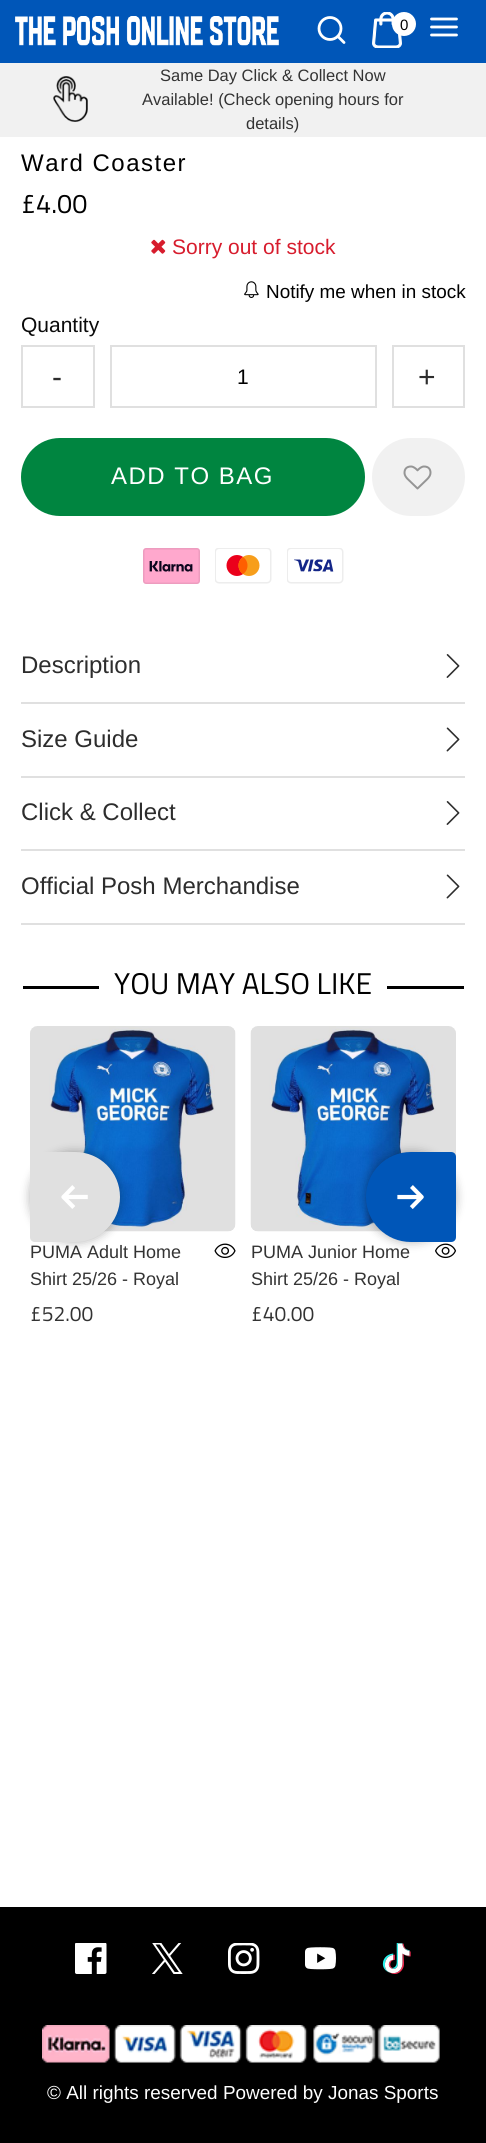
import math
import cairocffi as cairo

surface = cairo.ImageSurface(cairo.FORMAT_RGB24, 486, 2143)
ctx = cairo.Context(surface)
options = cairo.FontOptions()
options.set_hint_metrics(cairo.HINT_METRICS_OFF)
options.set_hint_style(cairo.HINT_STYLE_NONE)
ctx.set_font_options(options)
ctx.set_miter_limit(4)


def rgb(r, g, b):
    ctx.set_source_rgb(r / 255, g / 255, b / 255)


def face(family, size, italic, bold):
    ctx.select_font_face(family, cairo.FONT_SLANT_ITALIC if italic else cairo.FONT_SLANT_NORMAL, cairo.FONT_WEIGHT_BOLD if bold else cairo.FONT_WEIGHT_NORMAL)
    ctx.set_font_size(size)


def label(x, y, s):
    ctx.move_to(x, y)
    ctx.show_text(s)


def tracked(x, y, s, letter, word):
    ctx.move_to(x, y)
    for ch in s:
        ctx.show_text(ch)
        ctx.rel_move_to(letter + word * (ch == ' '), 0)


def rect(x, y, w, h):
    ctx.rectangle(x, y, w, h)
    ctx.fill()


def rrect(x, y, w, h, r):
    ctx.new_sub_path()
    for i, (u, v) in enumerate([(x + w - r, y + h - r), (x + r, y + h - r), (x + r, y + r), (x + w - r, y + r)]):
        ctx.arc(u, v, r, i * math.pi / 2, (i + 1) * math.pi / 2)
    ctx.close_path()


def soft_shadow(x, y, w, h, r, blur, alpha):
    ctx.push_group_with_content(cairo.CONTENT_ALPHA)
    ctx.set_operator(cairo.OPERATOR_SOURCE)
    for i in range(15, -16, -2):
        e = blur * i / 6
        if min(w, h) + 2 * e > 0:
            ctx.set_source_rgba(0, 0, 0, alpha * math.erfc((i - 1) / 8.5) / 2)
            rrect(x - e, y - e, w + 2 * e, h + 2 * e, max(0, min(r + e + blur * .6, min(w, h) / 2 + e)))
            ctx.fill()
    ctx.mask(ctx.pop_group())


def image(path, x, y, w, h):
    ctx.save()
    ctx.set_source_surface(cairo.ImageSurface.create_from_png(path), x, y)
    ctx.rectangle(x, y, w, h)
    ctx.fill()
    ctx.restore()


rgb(255, 255, 255)
ctx.paint()
rgb(0, 86, 184)
rect(0, 0, 486, 63)
image('image0.png', 15, 16, 264, 30)
ctx.arc(330, 28.5, 11, 0, 2 * math.pi)
rgb(255, 255, 255)
ctx.set_line_width(2.8)
ctx.stroke()
ctx.new_path()
ctx.move_to(344, 42.5)
ctx.line_to(338, 36.5)
ctx.set_line_cap(cairo.LINE_CAP_ROUND)
ctx.set_line_join(cairo.LINE_JOIN_ROUND)
ctx.stroke()
image('image1.png', 372, 12, 30, 36)
ctx.arc(404, 24, 12, 0, 2 * math.pi)
ctx.fill()
face('Liberation Sans', 15, 0, 0)
rgb(0, 0, 0)
label(400, 30, '0')
ctx.new_path()
ctx.move_to(431.5, 27)
ctx.line_to(456.5, 27)
ctx.move_to(431.5, 19)
ctx.line_to(456.5, 19)
ctx.move_to(431.5, 35)
ctx.line_to(456.5, 35)
rgb(255, 255, 255)
ctx.stroke()
rgb(241, 241, 241)
rect(0, 63, 486, 74)
image('image2.png', 53, 76, 35, 46)
face('Liberation Sans', 16.5, 0, 0)
rgb(51, 51, 51)
label(160, 81, 'Same Day Click & Collect Now')
label(142, 105, 'Available! (Check opening hours for')
label(246, 129, 'details)')
face('Liberation Sans', 24, 0, 0)
rgb(0, 0, 0)
tracked(21, 171, 'Ward Coaster', 1.5, 0)
face('Titillium Web', 27, 0, 0)
label(21, 213, '£4.00')
image('image3.png', 151, 239, 15, 15)
face('Liberation Sans', 21, 0, 0)
rgb(215, 28, 45)
label(172, 254, 'Sorry out of stock')
image('image4.png', 244, 281, 15, 17)
face('Liberation Sans', 18.9, 0, 0)
rgb(0, 0, 0)
label(266, 298, 'Notify me when in stock')
face('Liberation Sans', 21, 0, 0)
rgb(10, 10, 10)
label(21, 332, 'Quantity')
ctx.rectangle(22, 346, 72, 61)
rgb(224, 224, 224)
ctx.set_line_width(2)
ctx.set_line_cap(cairo.LINE_CAP_BUTT)
ctx.set_line_join(cairo.LINE_JOIN_MITER)
ctx.stroke()
face('Liberation Sans', 30, 0, 0)
rgb(45, 45, 45)
tracked(52, 387, '-', 1.5, 0)
ctx.rectangle(111, 346, 265, 61)
rgb(224, 224, 224)
ctx.stroke()
face('Liberation Sans', 21, 0, 0)
rgb(0, 0, 0)
label(237, 384, '1')
ctx.rectangle(393, 346, 71, 61)
rgb(224, 224, 224)
ctx.stroke()
face('Liberation Sans', 30, 0, 0)
rgb(45, 45, 45)
tracked(418, 387, '+', 1.5, 0)
rgb(0, 133, 64)
rrect(21, 438, 344, 78, 39)
ctx.fill()
face('Liberation Sans', 24, 0, 0)
rgb(255, 255, 255)
tracked(111, 484, 'ADD TO BAG', 1.5, 0)
rgb(241, 241, 241)
rrect(372, 438, 93, 78, 39)
ctx.fill()
image('image5.png', 403, 465, 29, 25)
image('image6.png', 143, 548, 57, 36)
image('image7.png', 215, 548, 57, 36)
image('image8.png', 287, 548, 57, 36)
rgb(224, 224, 224)
rect(21, 702, 444, 2)
rgb(45, 45, 45)
label(21, 673, 'Description')
image('image9.png', 446, 654, 14, 24)
rgb(224, 224, 224)
rect(21, 776, 444, 2)
rgb(45, 45, 45)
label(21, 747, 'Size Guide')
image('image10.png', 446, 727, 14, 25)
rgb(224, 224, 224)
rect(21, 849, 444, 2)
rgb(45, 45, 45)
label(21, 820, 'Click & Collect')
image('image9.png', 446, 801, 14, 24)
rgb(224, 224, 224)
rect(21, 923, 444, 2)
rgb(45, 45, 45)
label(21, 894, 'Official Posh Merchandise')
image('image10.png', 446, 874, 14, 25)
rgb(0, 0, 0)
rect(23, 986, 76, 3)
face('Titillium Web', 30, 0, 0)
label(114, 994, 'YOU MAY ALSO LIKE')
rect(387, 986, 77, 3)
image('image13.png', 30, 1026, 206, 206)
rgb(0, 0, 0)
soft_shadow(30, 1152, 90, 90, 45, 5, 0.3)
rgb(224, 224, 224)
ctx.new_path()
ctx.move_to(35, 1152)
ctx.line_to(75, 1152)
ctx.curve_to(100, 1152, 120, 1172, 120, 1197)
ctx.curve_to(120, 1222, 100, 1242, 75, 1242)
ctx.line_to(35, 1242)
ctx.curve_to(32, 1242, 30, 1240, 30, 1237)
ctx.line_to(30, 1157)
ctx.curve_to(30, 1154, 32, 1152, 35, 1152)
ctx.close_path()
ctx.fill()
image('image11.png', 61, 1185, 27, 24)
image('image15.png', 250, 1026, 206, 206)
image('image16.png', 435, 1243, 22, 16)
rgb(0, 0, 0)
soft_shadow(366, 1152, 90, 90, 45, 5, 0.3)
rgb(0, 86, 184)
ctx.new_path()
ctx.move_to(411, 1152)
ctx.line_to(451, 1152)
ctx.curve_to(454, 1152, 456, 1154, 456, 1157)
ctx.line_to(456, 1237)
ctx.curve_to(456, 1240, 454, 1242, 451, 1242)
ctx.line_to(411, 1242)
ctx.curve_to(386, 1242, 366, 1222, 366, 1197)
ctx.curve_to(366, 1172, 386, 1152, 411, 1152)
ctx.close_path()
ctx.fill()
image('image12.png', 397, 1185, 27, 24)
face('Liberation Sans', 18, 0, 0)
rgb(51, 51, 51)
label(30, 1258, 'PUMA Adult Home')
label(30, 1285, 'Shirt 25/26 - Royal')
face('Titillium Web', 21, 0, 0)
label(30, 1321, '£52.00')
image('image14.png', 214, 1243, 22, 15)
face('Liberation Sans', 18, 0, 0)
label(251, 1258, 'PUMA Junior Home')
label(251, 1285, 'Shirt 25/26 - Royal')
face('Titillium Web', 21, 0, 0)
label(251, 1321, '£40.00')
rgb(0, 0, 0)
rect(0, 1907, 486, 236)
image('image17.png', 75, 1943, 32, 31)
image('image18.png', 152, 1943, 31, 31)
image('image19.png', 228, 1943, 32, 31)
image('image20.png', 305, 1947, 31, 23)
image('image21.png', 382, 1943, 29, 31)
image('image22.png', 42, 2025, 266, 38)
image('image23.png', 313, 2025, 63, 38)
image('image24.png', 377, 2025, 63, 38)
face('Liberation Sans', 18.9, 0, 0)
rgb(255, 255, 255)
label(47, 2099, '© All rights reserved')
label(223, 2099, 'Powered by Jonas Sports')
surface.write_to_png('render.png')
